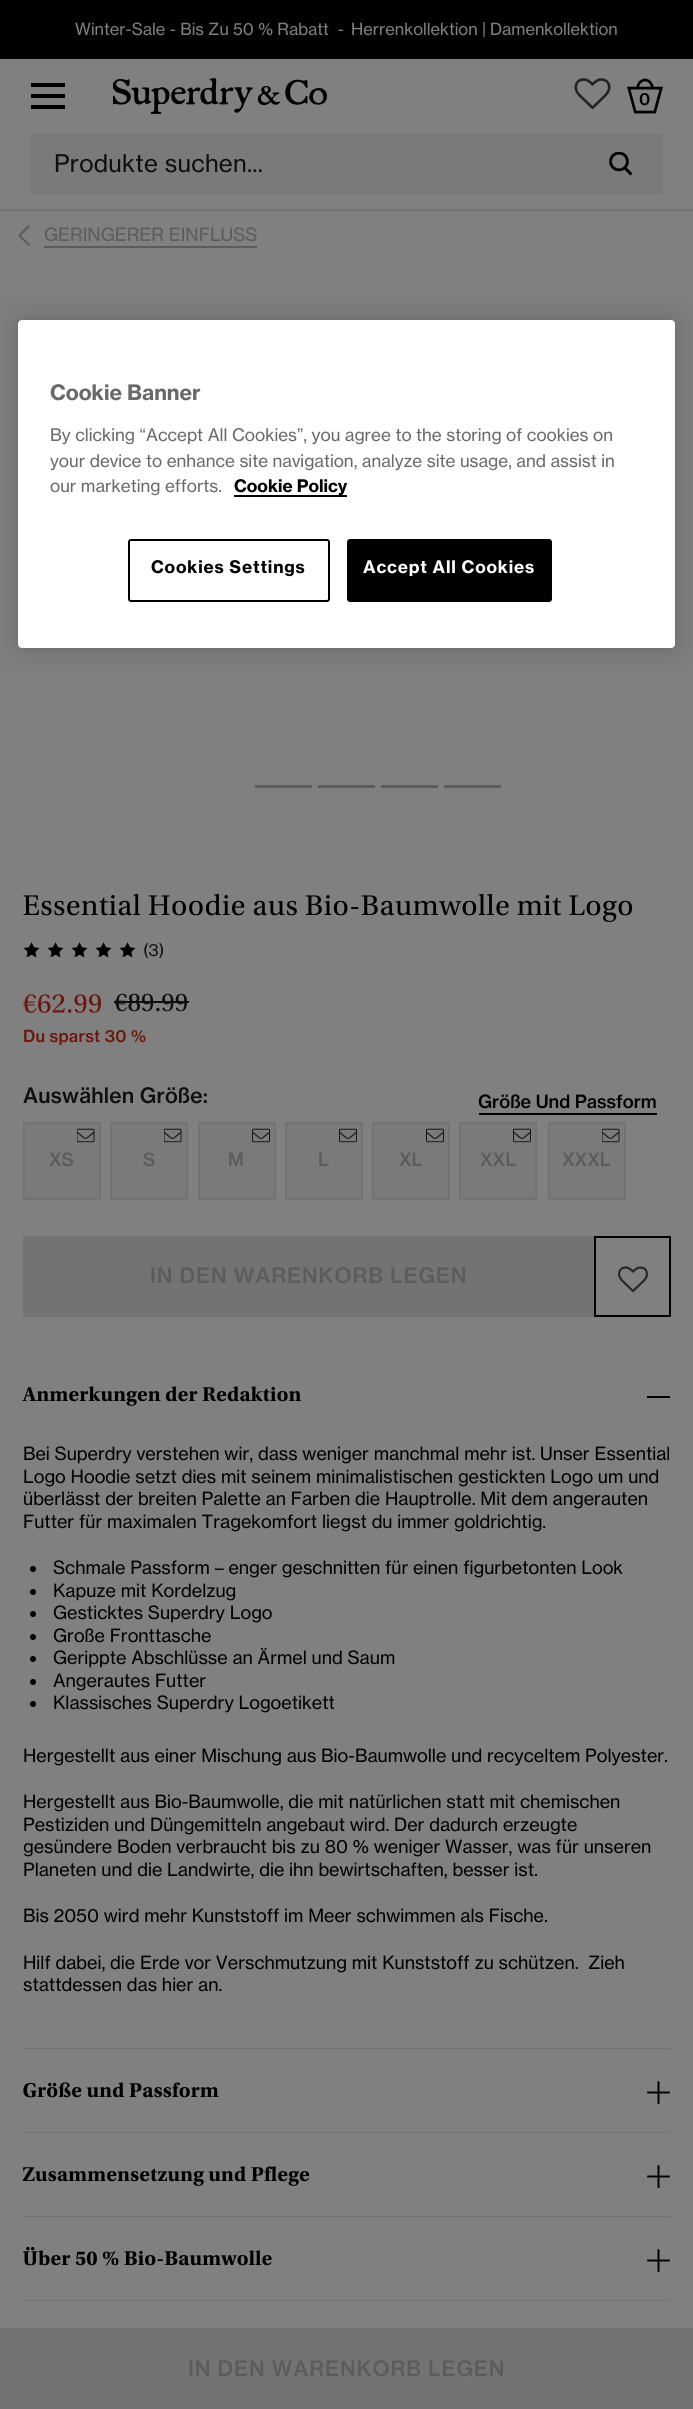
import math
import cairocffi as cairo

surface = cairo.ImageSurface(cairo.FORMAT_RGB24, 693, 2409)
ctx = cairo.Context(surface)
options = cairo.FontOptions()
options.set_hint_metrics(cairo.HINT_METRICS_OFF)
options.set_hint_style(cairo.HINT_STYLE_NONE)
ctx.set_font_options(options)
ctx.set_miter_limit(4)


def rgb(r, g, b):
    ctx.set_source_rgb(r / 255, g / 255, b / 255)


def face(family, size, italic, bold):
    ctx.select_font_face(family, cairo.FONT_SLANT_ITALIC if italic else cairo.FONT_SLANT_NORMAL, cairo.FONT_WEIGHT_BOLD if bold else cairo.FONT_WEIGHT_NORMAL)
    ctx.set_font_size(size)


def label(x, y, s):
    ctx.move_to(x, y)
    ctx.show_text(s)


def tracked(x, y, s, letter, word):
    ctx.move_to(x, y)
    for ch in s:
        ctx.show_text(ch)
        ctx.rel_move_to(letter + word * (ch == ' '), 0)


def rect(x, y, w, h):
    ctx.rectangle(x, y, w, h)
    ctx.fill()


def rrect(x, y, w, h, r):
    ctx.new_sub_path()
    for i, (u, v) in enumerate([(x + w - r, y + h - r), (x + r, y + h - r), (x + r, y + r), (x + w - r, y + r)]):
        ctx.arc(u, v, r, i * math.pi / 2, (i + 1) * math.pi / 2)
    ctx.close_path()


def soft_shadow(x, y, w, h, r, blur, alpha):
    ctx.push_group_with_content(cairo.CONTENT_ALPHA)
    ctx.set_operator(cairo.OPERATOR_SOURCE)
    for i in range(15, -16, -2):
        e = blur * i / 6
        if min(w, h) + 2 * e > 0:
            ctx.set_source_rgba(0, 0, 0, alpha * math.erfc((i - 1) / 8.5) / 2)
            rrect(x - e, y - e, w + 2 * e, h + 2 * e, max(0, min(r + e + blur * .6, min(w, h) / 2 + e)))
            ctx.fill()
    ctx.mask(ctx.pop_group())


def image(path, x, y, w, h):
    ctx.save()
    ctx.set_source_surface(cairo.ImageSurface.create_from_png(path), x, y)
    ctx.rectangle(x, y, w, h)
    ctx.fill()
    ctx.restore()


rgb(128, 128, 128)
ctx.paint()
rgb(0, 0, 0)
rect(0, 0, 693, 59)
face('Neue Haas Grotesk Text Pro', 16.5, 0, 0)
rgb(128, 128, 128)
label(75, 35, 'Winter-Sale - Bis Zu 50 % Rabatt  -')
label(351, 35, 'Herrenkollektion')
label(482, 35, '|')
label(490, 35, 'Damenkollektion')
rgb(0, 0, 0)
rect(31, 83, 34, 4)
rect(31, 94, 34, 4)
rect(31, 105, 34, 4)
image('image0.png', 113, 78, 214, 36)
image('image1.png', 574, 78, 37, 32)
image('image2.png', 627, 78, 36, 36)
face('Neue Haas Grotesk Text Pro Medium', 16.5, 0, 0)
tracked(639, 105, '0', 0.2, 0)
rgb(122, 122, 122)
rect(30, 134, 633, 60)
face('Neue Haas Grotesk Text Pro', 24, 0, 0)
rgb(15, 15, 15)
tracked(54, 172, 'Produkte suchen...', 0.25, 0)
image('image3.png', 609, 152, 24, 24)
rgb(115, 115, 115)
rect(0, 209, 693, 2)
rgb(92, 92, 92)
ctx.new_path()
ctx.move_to(28.5, 225)
ctx.line_to(30, 226.5)
ctx.line_to(21, 235.5)
ctx.line_to(30, 244.5)
ctx.line_to(28.5, 246)
ctx.line_to(18, 235.5)
ctx.close_path()
ctx.fill()
face('Neue Haas Grotesk Text Pro', 18, 0, 0)
label(44, 241, 'GERINGERER EINFLUSS')
rect(44, 246, 213, 2)
rect(255, 785, 57, 3)
rect(318, 785, 57, 3)
rect(381, 785, 57, 3)
rect(444, 785, 57, 3)
image('image4.png', 23, 893, 610, 29)
image('image5.png', 23, 942, 17, 16)
image('image5.png', 47, 942, 17, 16)
image('image5.png', 71, 942, 17, 16)
image('image5.png', 95, 942, 17, 16)
image('image5.png', 119, 942, 17, 16)
face('Neue Haas Grotesk Text Pro', 16.5, 0, 0)
rgb(15, 15, 15)
label(143, 956, '(3)')
image('image6.png', 23, 994, 78, 19)
image('image7.png', 114, 993, 73, 19)
rect(114, 1001, 75, 2)
face('Neue Haas Grotesk Text Pro Medium', 16.5, 0, 0)
rgb(108, 22, 13)
tracked(23, 1042, 'Du sparst 30 %', 0.2, 0)
face('Neue Haas Grotesk Text Pro Medium', 21, 0, 0)
rgb(15, 15, 15)
tracked(23, 1103, 'Auswählen Größe:', 0.2, 0)
face('Neue Haas Grotesk Text Pro Medium', 18, 0, 0)
rgb(0, 0, 0)
label(478, 1108, 'Größe Und Passform')
rect(479, 1113, 178, 2)
rgb(122, 122, 122)
ctx.rectangle(24, 1123, 76, 76)
ctx.fill_preserve()
rgb(115, 115, 115)
ctx.stroke()
image('image8.png', 77, 1128, 18, 15)
rgb(92, 92, 92)
label(49, 1166, 'XS')
rgb(122, 122, 122)
ctx.rectangle(111, 1123, 76, 76)
ctx.fill_preserve()
rgb(115, 115, 115)
ctx.stroke()
image('image8.png', 164, 1128, 18, 15)
rgb(92, 92, 92)
label(143, 1166, 'S')
rgb(122, 122, 122)
ctx.rectangle(199, 1123, 76, 76)
ctx.fill_preserve()
rgb(115, 115, 115)
ctx.stroke()
image('image9.png', 252, 1128, 18, 15)
rgb(92, 92, 92)
label(228, 1166, 'M')
rgb(122, 122, 122)
ctx.rectangle(286, 1123, 76, 76)
ctx.fill_preserve()
rgb(115, 115, 115)
ctx.stroke()
image('image9.png', 339, 1128, 18, 15)
rgb(92, 92, 92)
label(318, 1166, 'L')
rgb(122, 122, 122)
ctx.rectangle(373, 1123, 76, 76)
ctx.fill_preserve()
rgb(115, 115, 115)
ctx.stroke()
image('image9.png', 426, 1128, 18, 15)
rgb(92, 92, 92)
label(399, 1166, 'XL')
rgb(122, 122, 122)
ctx.rectangle(460, 1123, 76, 76)
ctx.fill_preserve()
rgb(115, 115, 115)
ctx.stroke()
image('image9.png', 513, 1128, 18, 15)
rgb(92, 92, 92)
label(480, 1166, 'XXL')
rgb(122, 122, 122)
ctx.rectangle(549, 1123, 76, 76)
ctx.fill_preserve()
rgb(115, 115, 115)
ctx.stroke()
image('image8.png', 602, 1128, 18, 15)
rgb(92, 92, 92)
label(562, 1166, 'XXXL')
rgb(115, 115, 115)
rect(23, 1236, 571, 81)
face('Neue Haas Grotesk Text Pro Medium', 21, 0, 0)
rgb(92, 92, 92)
tracked(150, 1283, 'IN DEN WARENKORB LEGEN', 0.9, 0)
ctx.rectangle(595, 1237, 75, 79)
rgb(0, 0, 0)
ctx.stroke()
image('image10.png', 618, 1266, 30, 27)
rgb(115, 115, 115)
rect(23, 2048, 648, 1)
image('image11.png', 22, 1386, 279, 20)
rgb(0, 0, 0)
rect(647, 1396, 23, 2)
face('Neue Haas Grotesk Text Pro', 18, 0, 0)
label(23, 1460, 'Bei Superdry verstehen wir, dass weniger manchmal mehr ist. Unser Essential')
label(23, 1483, 'Logo Hoodie setzt dies mit seinem minimalistischen gestickten Logo um und')
label(23, 1505, 'überlässt der breiten Palette an Farben die Hauptrolle. Mit dem angerauten')
label(23, 1528, 'Futter für maximalen Tragekomfort liegst du immer goldrichtig.')
ctx.new_path()
ctx.arc(33, 1569, 3, 0, 2 * math.pi)
ctx.fill()
label(53, 1574, 'Schmale Passform – enger geschnitten für einen figurbetonten Look')
ctx.new_path()
ctx.arc(33, 1592, 3, 0, 2 * math.pi)
ctx.fill()
label(53, 1597, 'Kapuze mit Kordelzug')
ctx.new_path()
ctx.arc(33, 1614, 3, 0, 2 * math.pi)
ctx.fill()
label(53, 1619, 'Gesticktes Superdry Logo')
ctx.new_path()
ctx.arc(33, 1637, 3, 0, 2 * math.pi)
ctx.fill()
label(53, 1642, 'Große Fronttasche')
ctx.new_path()
ctx.arc(33, 1659, 3, 0, 2 * math.pi)
ctx.fill()
label(53, 1664, 'Gerippte Abschlüsse an Ärmel und Saum')
ctx.new_path()
ctx.arc(33, 1682, 3, 0, 2 * math.pi)
ctx.fill()
label(53, 1687, 'Angerautes Futter')
ctx.new_path()
ctx.arc(33, 1704, 3, 0, 2 * math.pi)
ctx.fill()
label(53, 1709, 'Klassisches Superdry Logoetikett')
label(23, 1762, 'Hergestellt aus einer Mischung aus Bio-Baumwolle und recyceltem Polyester.')
label(23, 1808, 'Hergestellt aus Bio-Baumwolle, die mit natürlichen statt mit chemischen')
label(23, 1831, 'Pestiziden und Düngemitteln angebaut wird. Der dadurch erzeugte')
label(23, 1853, 'gesündere Boden verbraucht bis zu 80 % weniger Wasser, was für unseren')
label(23, 1876, 'Planeten und die Landwirte, die ihn bewirtschaften, besser ist.')
label(23, 1922, 'Bis 2050 wird mehr Kunststoff im Meer schwimmen als Fische.')
label(23, 1969, 'Hilf dabei, die Erde vor Verschmutzung mit Kunststoff zu schützen.  Zieh')
label(23, 1991, 'stattdessen das hier an.')
rgb(115, 115, 115)
rect(23, 2132, 648, 1)
image('image12.png', 23, 2082, 196, 16)
image('image13.png', 647, 2081, 23, 23)
rect(23, 2216, 648, 1)
image('image14.png', 22, 2166, 288, 20)
image('image13.png', 647, 2165, 23, 23)
rect(23, 2300, 648, 1)
image('image15.png', 23, 2246, 249, 20)
image('image13.png', 647, 2249, 23, 23)
rect(0, 2328, 693, 81)
face('Neue Haas Grotesk Text Pro Medium', 21, 0, 0)
rgb(92, 92, 92)
tracked(188, 2376, 'IN DEN WARENKORB LEGEN', 0.9, 0)
rgb(0, 0, 0)
soft_shadow(18, 320, 657, 328, 4, 13.5, 0.2)
rgb(255, 255, 255)
rrect(18, 320, 657, 328, 4)
ctx.fill()
face('Neue Haas Grotesk Text Pro', 21, 0, 1)
rgb(105, 105, 105)
label(50, 400, 'Cookie Banner')
face('Neue Haas Grotesk Text Pro', 17.1, 0, 0)
label(50, 441, 'By clicking “Accept All Cookies”, you agree to the storing of cookies on')
label(50, 467, 'your device to enhance site navigation, analyze site usage, and assist in')
label(50, 492, 'our marketing efforts.')
rgb(0, 0, 0)
rect(234, 495, 113, 2)
face('Neue Haas Grotesk Text Pro', 17.1, 0, 1)
label(234, 492, 'Cookie Policy')
rrect(129, 540, 200, 61, 2)
ctx.stroke()
tracked(151, 573, 'Cookies Settings', 0.8, 0)
rrect(348, 540, 203, 61, 2)
ctx.fill_preserve()
ctx.stroke()
rgb(255, 255, 255)
tracked(363, 573, 'Accept All Cookies', 0.8, 0)
surface.write_to_png('render.png')
